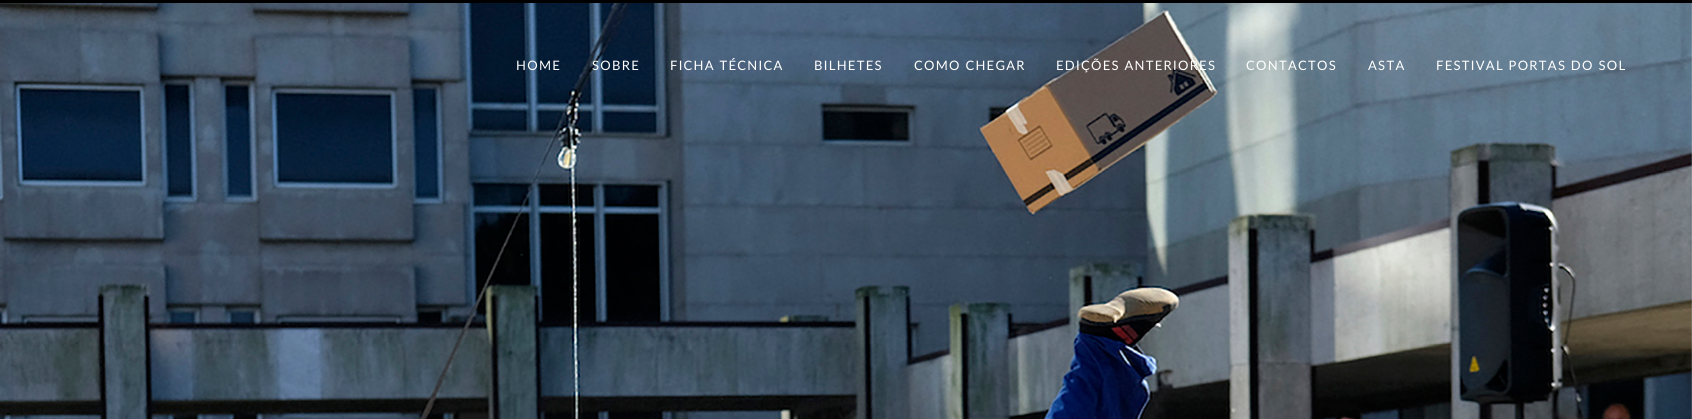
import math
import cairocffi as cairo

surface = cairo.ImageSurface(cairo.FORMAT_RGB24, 1692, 419)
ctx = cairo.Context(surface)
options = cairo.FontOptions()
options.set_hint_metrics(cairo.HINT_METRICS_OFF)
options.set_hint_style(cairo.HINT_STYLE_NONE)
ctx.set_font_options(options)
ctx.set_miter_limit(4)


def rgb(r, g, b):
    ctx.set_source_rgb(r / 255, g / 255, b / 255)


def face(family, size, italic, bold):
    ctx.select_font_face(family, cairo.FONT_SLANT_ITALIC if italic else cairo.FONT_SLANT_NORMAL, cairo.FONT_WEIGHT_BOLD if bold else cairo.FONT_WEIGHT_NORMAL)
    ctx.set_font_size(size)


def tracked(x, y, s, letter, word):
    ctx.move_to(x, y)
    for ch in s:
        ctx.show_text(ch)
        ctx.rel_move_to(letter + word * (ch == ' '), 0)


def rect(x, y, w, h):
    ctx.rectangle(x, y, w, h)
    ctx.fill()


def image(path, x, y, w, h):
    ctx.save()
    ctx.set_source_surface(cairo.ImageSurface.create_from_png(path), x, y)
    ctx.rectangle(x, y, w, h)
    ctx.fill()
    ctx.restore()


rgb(255, 255, 255)
ctx.paint()
image('image0.png', 0, 3, 1692, 416)
rgb(0, 0, 0)
rect(0, 0, 1692, 3)
face('Lato', 13, 0, 0)
rgb(255, 255, 255)
tracked(516, 70, 'HOME', 1.3, 0)
tracked(592, 70, 'SOBRE', 1.3, 0)
tracked(670, 70, 'FICHA TÉCNICA', 1.3, 0)
tracked(814, 70, 'BILHETES', 1.3, 0)
tracked(914, 70, 'COMO CHEGAR', 1.3, 0)
tracked(1056, 70, 'EDIÇÕES ANTERIORES', 1.3, 0)
tracked(1246, 70, 'CONTACTOS', 1.3, 0)
tracked(1368, 70, 'ASTA', 1.3, 0)
tracked(1436, 70, 'FESTIVAL PORTAS DO SOL', 1.3, 0)
surface.write_to_png('render.png')
